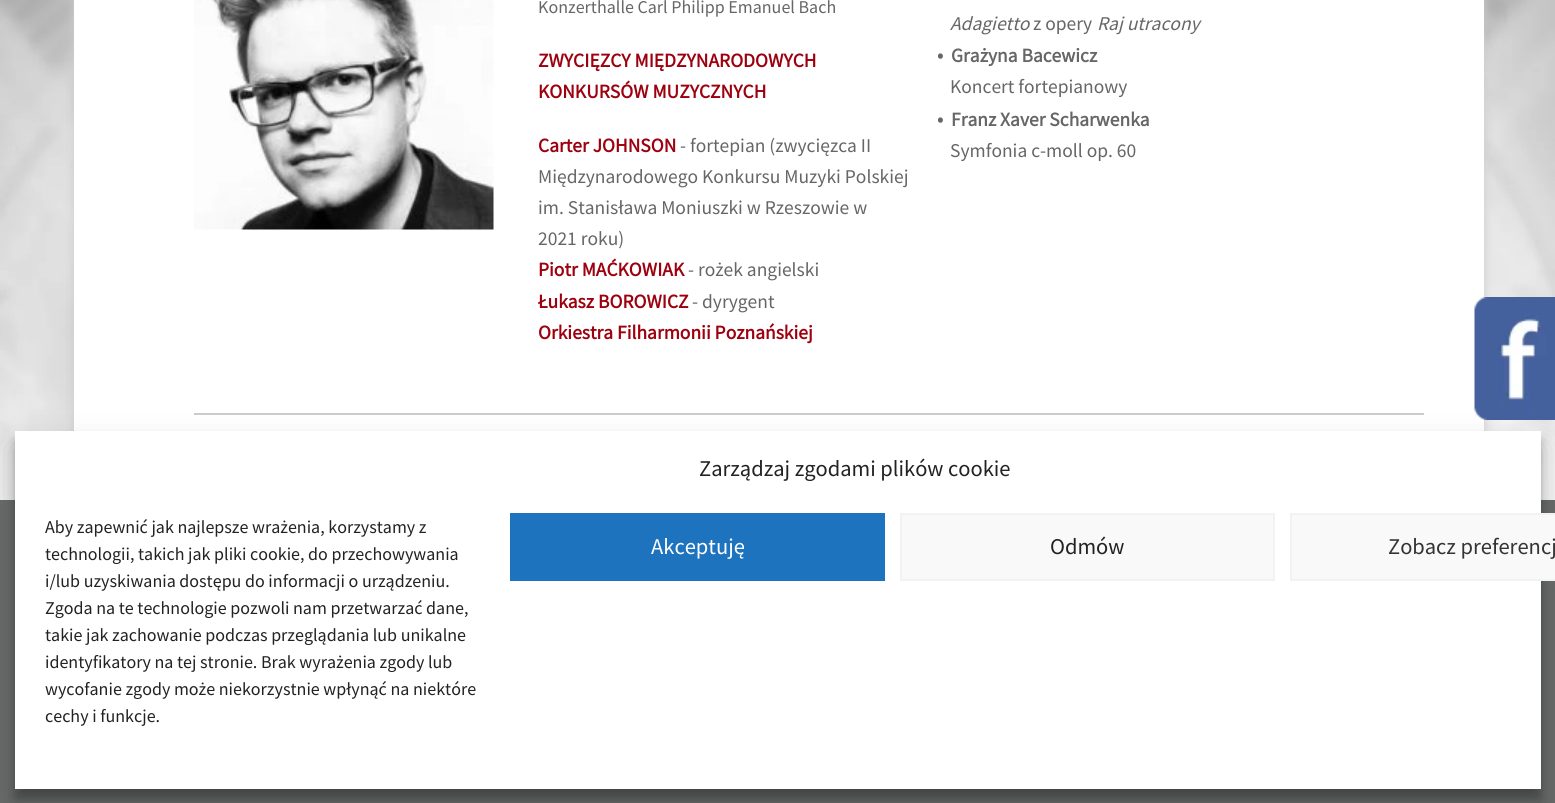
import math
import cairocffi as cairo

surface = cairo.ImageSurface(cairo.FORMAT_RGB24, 1555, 803)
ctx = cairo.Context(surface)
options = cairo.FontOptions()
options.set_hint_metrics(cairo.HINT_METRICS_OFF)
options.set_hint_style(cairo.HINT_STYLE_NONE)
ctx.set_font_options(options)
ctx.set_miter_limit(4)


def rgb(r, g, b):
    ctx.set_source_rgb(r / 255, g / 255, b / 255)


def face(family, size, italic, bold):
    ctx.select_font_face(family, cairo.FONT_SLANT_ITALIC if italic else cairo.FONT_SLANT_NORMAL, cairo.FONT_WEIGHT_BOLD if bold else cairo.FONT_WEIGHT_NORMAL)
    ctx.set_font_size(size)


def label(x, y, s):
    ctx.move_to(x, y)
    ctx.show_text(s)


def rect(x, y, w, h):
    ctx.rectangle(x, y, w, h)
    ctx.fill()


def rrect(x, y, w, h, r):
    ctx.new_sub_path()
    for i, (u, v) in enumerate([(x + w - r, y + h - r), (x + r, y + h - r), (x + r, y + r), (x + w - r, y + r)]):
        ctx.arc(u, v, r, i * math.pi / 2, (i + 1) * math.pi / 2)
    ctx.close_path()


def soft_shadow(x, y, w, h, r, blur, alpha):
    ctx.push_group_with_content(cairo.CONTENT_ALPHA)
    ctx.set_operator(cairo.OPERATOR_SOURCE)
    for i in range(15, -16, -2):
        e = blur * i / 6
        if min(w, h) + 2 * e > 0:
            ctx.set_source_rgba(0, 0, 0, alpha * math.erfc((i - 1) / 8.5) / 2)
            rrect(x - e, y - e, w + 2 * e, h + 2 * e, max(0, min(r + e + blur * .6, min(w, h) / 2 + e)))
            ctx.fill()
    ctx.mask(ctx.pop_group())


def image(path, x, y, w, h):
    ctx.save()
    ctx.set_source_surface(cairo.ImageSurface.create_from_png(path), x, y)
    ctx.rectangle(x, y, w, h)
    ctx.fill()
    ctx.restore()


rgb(255, 255, 255)
ctx.paint()
image('image0.png', 0, 0, 1555, 500)
rgb(204, 204, 204)
soft_shadow(74, -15, 1410, 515, 0, 5, 1)
rgb(255, 255, 255)
rect(74, 0, 1410, 431)
image('image1.png', 194, 0, 300, 230)
face('Source Sans Pro', 18, 0, 0)
rgb(102, 102, 102)
label(538, 13, 'Konzerthalle Carl Philipp Emanuel Bach')
face('Source Sans Pro', 19.5, 0, 1)
rgb(157, 0, 14)
label(538, 67, 'ZWYCIĘZCY MIĘDZYNARODOWYCH')
label(538, 98, 'KONKURSÓW MUZYCZNYCH')
label(538, 152, 'Carter JOHNSON')
face('Source Sans Pro', 19.5, 0, 0)
rgb(102, 102, 102)
label(680, 152, '- fortepian (zwycięzca II')
label(538, 183, 'Międzynarodowego Konkursu Muzyki Polskiej')
label(538, 214, 'im. Stanisława Moniuszki w Rzeszowie w')
label(538, 245, '2021 roku)')
face('Source Sans Pro', 19.5, 0, 1)
rgb(157, 0, 14)
label(538, 276, 'Piotr MAĆKOWIAK')
face('Source Sans Pro', 19.5, 0, 0)
rgb(102, 102, 102)
label(688, 276, '- rożek angielski')
face('Source Sans Pro', 19.5, 0, 1)
rgb(157, 0, 14)
label(538, 308, 'Łukasz BOROWICZ')
face('Source Sans Pro', 19.5, 0, 0)
rgb(102, 102, 102)
label(692, 308, '- dyrygent')
face('Source Sans Pro', 19.5, 0, 1)
rgb(157, 0, 14)
label(538, 339, 'Orkiestra Filharmonii Poznańskiej')
face('Source Sans Pro', 19.5, 1, 0)
rgb(102, 102, 102)
label(950, 30, 'Adagietto')
face('Source Sans Pro', 19.5, 0, 0)
label(1033, 30, 'z opery')
face('Source Sans Pro', 19.5, 1, 0)
label(1097, 30, 'Raj utracony')
face('Source Sans Pro', 22.5, 0, 0)
label(937, 62, '•')
face('Source Sans Pro', 19.5, 0, 1)
label(951, 62, 'Grażyna Bacewicz')
face('Source Sans Pro', 19.5, 0, 0)
label(950, 93, 'Koncert fortepianowy')
face('Source Sans Pro', 22.5, 0, 0)
label(937, 126, '•')
face('Source Sans Pro', 19.5, 0, 1)
label(951, 126, 'Franz Xaver Scharwenka')
face('Source Sans Pro', 19.5, 0, 0)
label(950, 157, 'Symfonia c-moll op. 60')
rgb(204, 204, 204)
rect(194, 413, 1230, 2)
rgb(105, 107, 106)
rect(0, 500, 1555, 303)
image('image2.png', 1474, 297, 81, 123)
rgb(0, 0, 0)
soft_shadow(15, 440, 1526, 358, 0, 4.5, 0.23)
soft_shadow(15, 446, 1526, 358, 0, 15, 0.19)
rgb(255, 255, 255)
rect(15, 431, 1526, 358)
face('Source Sans Pro', 22.5, 0, 0)
rgb(34, 34, 34)
label(699, 476, 'Zarządzaj zgodami plików cookie')
face('Source Sans Pro', 18, 0, 0)
label(45, 533, 'Aby zapewnić jak najlepsze wrażenia, korzystamy z')
label(45, 560, 'technologii, takich jak pliki cookie, do przechowywania')
label(45, 587, 'i/lub uzyskiwania dostępu do informacji o urządzeniu.')
label(45, 614, 'Zgoda na te technologie pozwoli nam przetwarzać dane,')
label(45, 641, 'takie jak zachowanie podczas przeglądania lub unikalne')
label(45, 668, 'identyfikatory na tej stronie. Brak wyrażenia zgody lub')
label(45, 695, 'wycofanie zgody może niekorzystnie wpłynąć na niektóre')
label(45, 722, 'cechy i funkcje.')
rgb(30, 115, 190)
rect(510, 513, 375, 68)
face('Source Sans Pro', 22.5, 0, 0)
rgb(255, 255, 255)
label(651, 554, 'Akceptuję')
rgb(249, 249, 249)
ctx.rectangle(901, 514, 373, 66)
ctx.fill_preserve()
rgb(242, 242, 242)
ctx.stroke()
rgb(34, 34, 34)
label(1050, 554, 'Odmów')
rgb(249, 249, 249)
ctx.rectangle(1291, 514, 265, 66)
ctx.fill_preserve()
rgb(242, 242, 242)
ctx.stroke()
rgb(51, 51, 51)
label(1388, 554, 'Zobacz preferencj')
surface.write_to_png('render.png')
